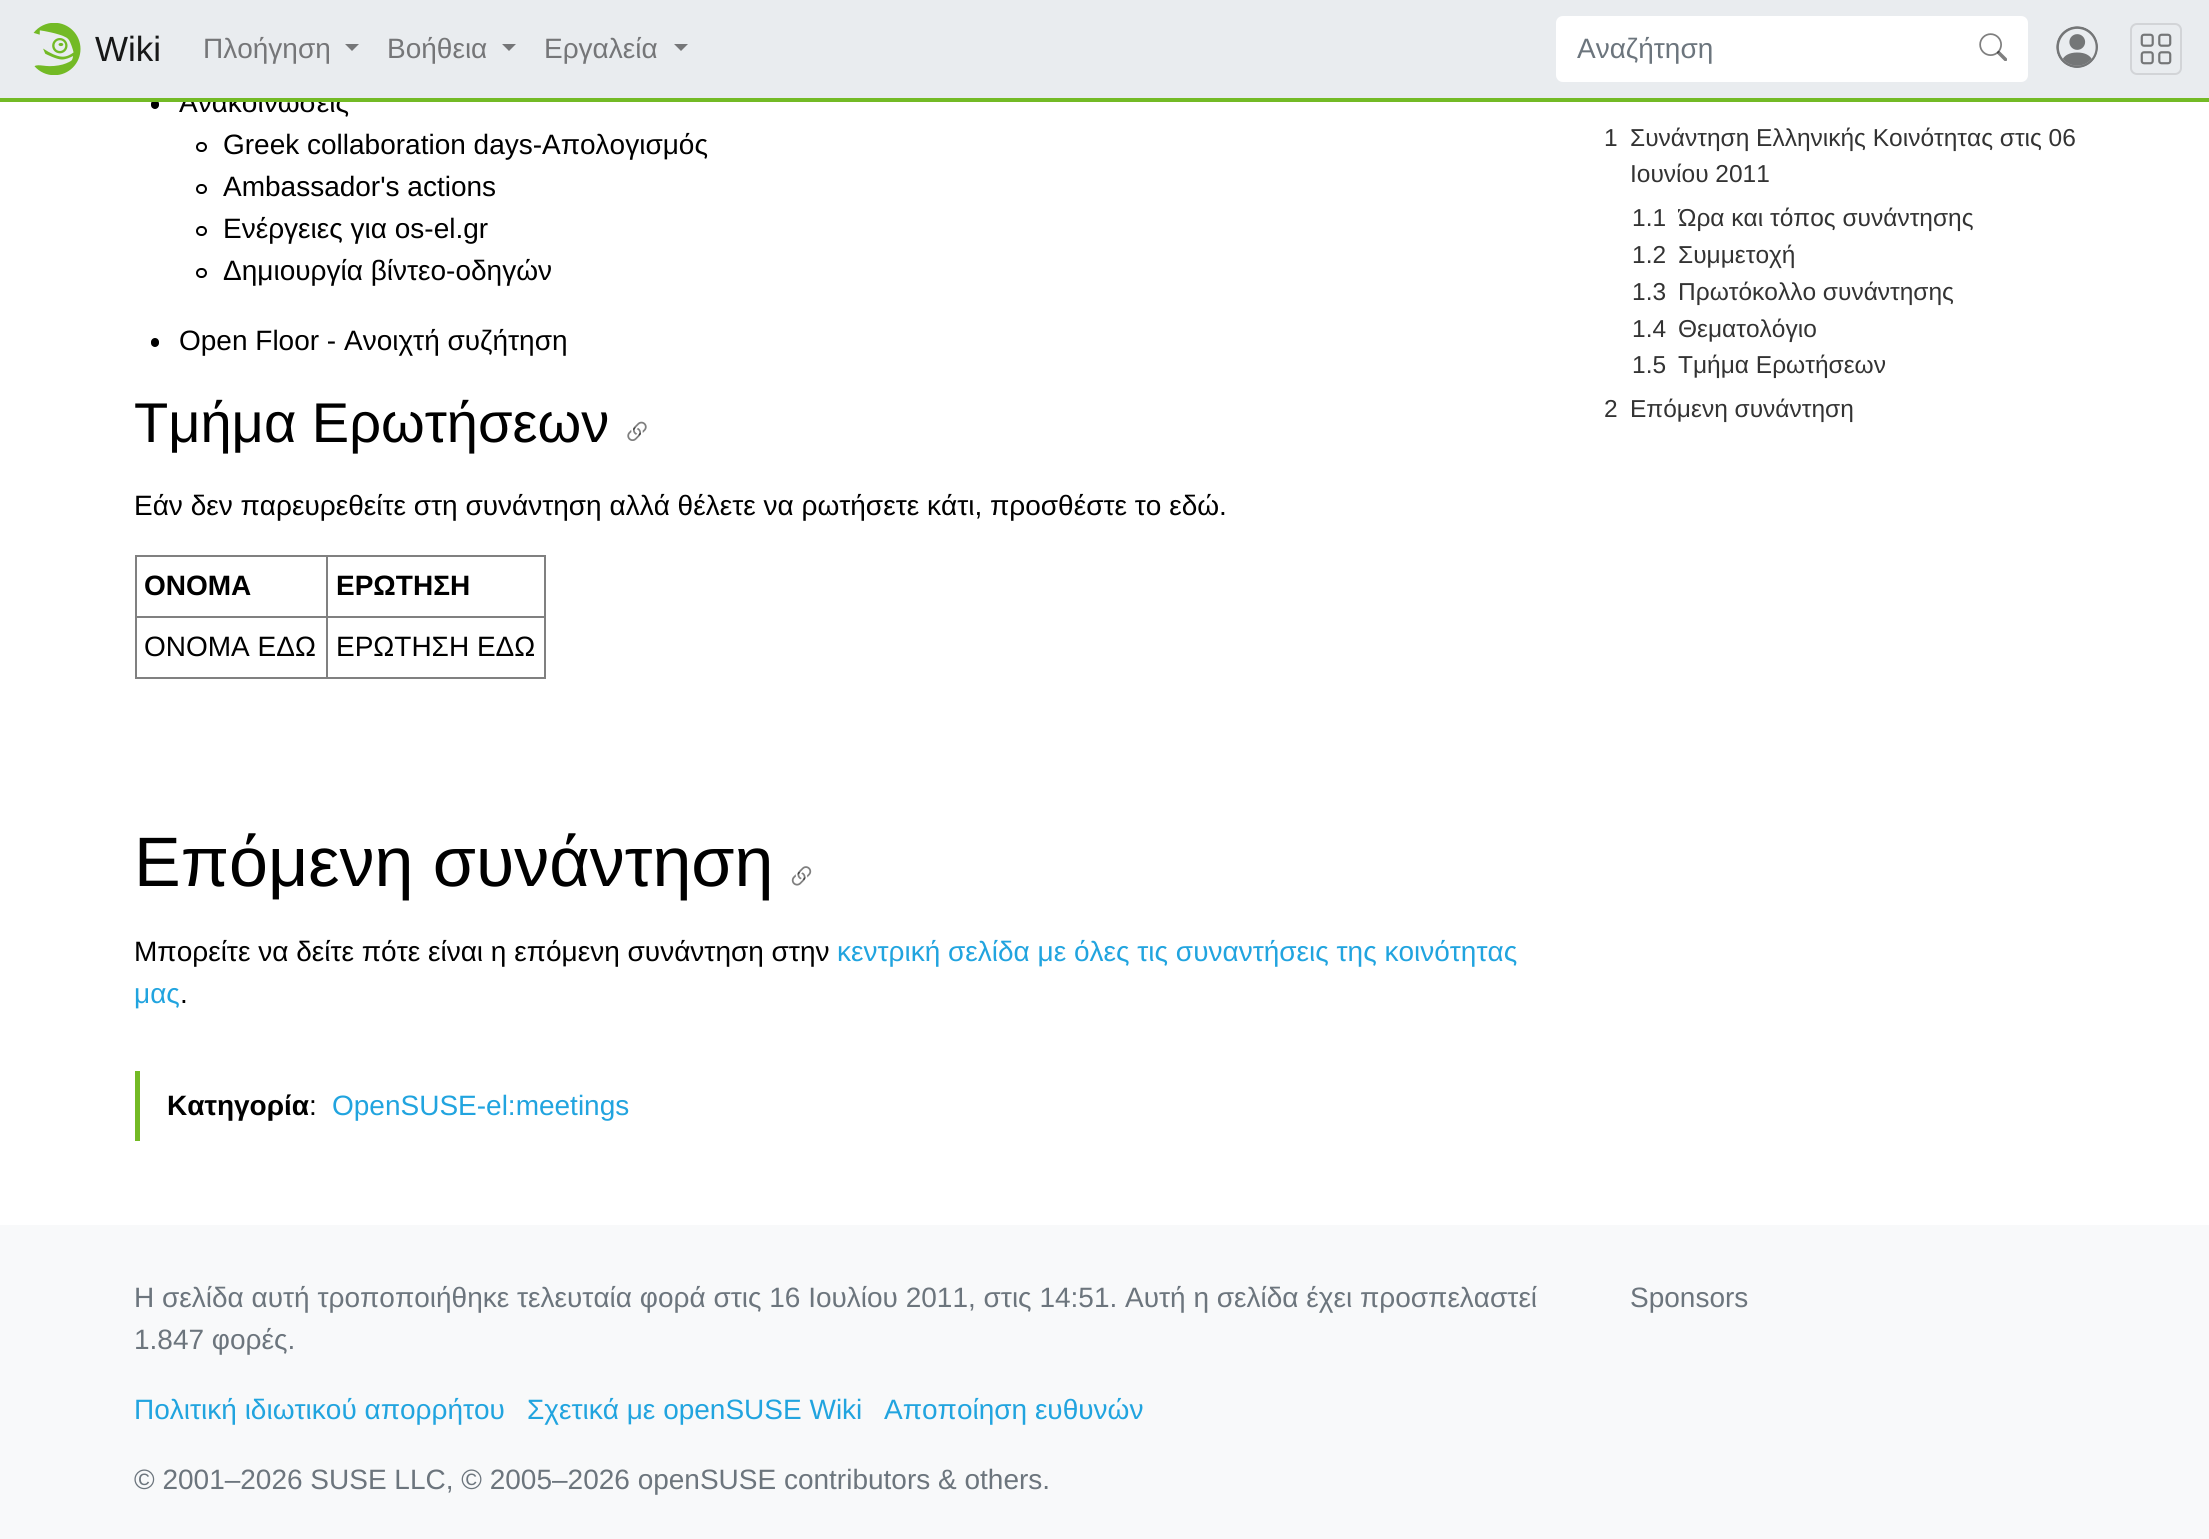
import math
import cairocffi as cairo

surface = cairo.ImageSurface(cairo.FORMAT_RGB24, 2209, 1539)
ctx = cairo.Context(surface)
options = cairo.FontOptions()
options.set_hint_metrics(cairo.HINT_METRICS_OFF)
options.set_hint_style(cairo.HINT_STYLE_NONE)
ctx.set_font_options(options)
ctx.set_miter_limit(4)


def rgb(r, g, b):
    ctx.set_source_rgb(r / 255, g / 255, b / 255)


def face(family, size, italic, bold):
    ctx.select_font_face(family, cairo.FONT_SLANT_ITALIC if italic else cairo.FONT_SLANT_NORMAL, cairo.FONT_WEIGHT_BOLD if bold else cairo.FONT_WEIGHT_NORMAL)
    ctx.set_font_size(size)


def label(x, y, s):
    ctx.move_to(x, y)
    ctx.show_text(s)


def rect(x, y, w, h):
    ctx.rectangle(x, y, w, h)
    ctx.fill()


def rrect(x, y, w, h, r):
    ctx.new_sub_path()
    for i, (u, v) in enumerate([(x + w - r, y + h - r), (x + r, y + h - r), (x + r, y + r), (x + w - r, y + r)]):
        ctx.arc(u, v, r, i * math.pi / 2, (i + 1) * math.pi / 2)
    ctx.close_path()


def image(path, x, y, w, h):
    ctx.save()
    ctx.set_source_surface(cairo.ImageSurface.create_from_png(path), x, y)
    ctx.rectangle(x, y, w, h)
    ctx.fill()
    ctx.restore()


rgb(255, 255, 255)
ctx.paint()
face('Liberation Sans', 28, 0, 0)
rgb(0, 0, 0)
label(179, 112, 'Ανακοινώσεις')
rgb(233, 236, 239)
rect(0, 0, 2209, 98)
rgb(0, 0, 0)
rrect(151, 100, 8, 9, 4)
ctx.fill()
rgb(115, 186, 37)
rect(0, 98, 2209, 4)
image('image0.png', 33, 23, 48, 52)
face('Liberation Sans', 35, 0, 0)
rgb(23, 24, 24)
label(95, 61, 'Wiki')
face('Liberation Sans', 28, 0, 0)
rgb(117, 118, 120)
label(203, 58, 'Πλοήγηση')
ctx.new_path()
ctx.move_to(345, 44)
ctx.line_to(359, 44)
ctx.line_to(352, 51)
ctx.close_path()
ctx.fill()
label(387, 58, 'Βοήθεια')
ctx.new_path()
ctx.move_to(502, 44)
ctx.line_to(516, 44)
ctx.line_to(509, 51)
ctx.close_path()
ctx.fill()
label(544, 58, 'Εργαλεία')
ctx.new_path()
ctx.move_to(674, 44)
ctx.line_to(688, 44)
ctx.line_to(681, 51)
ctx.close_path()
ctx.fill()
rgb(255, 255, 255)
ctx.new_path()
ctx.move_to(1563, 16)
ctx.line_to(1960, 16)
ctx.line_to(1960, 82)
ctx.line_to(1563, 82)
ctx.curve_to(1559, 82, 1556, 79, 1556, 75)
ctx.line_to(1556, 23)
ctx.curve_to(1556, 19, 1559, 16, 1563, 16)
ctx.close_path()
ctx.fill()
rgb(108, 117, 125)
label(1577, 58, 'Αναζήτηση')
rgb(255, 255, 255)
ctx.new_path()
ctx.move_to(1958, 16)
ctx.line_to(2021, 16)
ctx.curve_to(2025, 16, 2028, 19, 2028, 23)
ctx.line_to(2028, 75)
ctx.curve_to(2028, 79, 2025, 82, 2021, 82)
ctx.line_to(1958, 82)
ctx.close_path()
ctx.fill()
image('image1.png', 1979, 33, 28, 28)
image('image2.png', 2056, 26, 42, 42)
rrect(2131, 24, 50, 50, 6)
rgb(210, 212, 215)
ctx.stroke()
image('image3.png', 2140, 33, 32, 32)
rrect(197, 143, 9, 8, 4)
rgb(0, 0, 0)
ctx.stroke()
label(223, 154, 'Greek collaboration days-Απολογισμός')
rrect(197, 185, 9, 8, 4)
ctx.stroke()
label(223, 196, 'Ambassador\'s actions')
rrect(197, 227, 9, 8, 4)
ctx.stroke()
label(223, 238, 'Ενέργειες για os-el.gr')
rrect(197, 269, 9, 8, 4)
ctx.stroke()
label(223, 280, 'Δημιουργία βίντεο-οδηγών')
rrect(151, 338, 8, 9, 4)
ctx.fill()
label(179, 350, 'Open Floor - Ανοιχτή συζήτηση')
face('Liberation Sans', 56, 0, 0)
label(134, 442, 'Τμήμα Ερωτήσεων')
image('image4.png', 627, 421, 20, 20)
face('Liberation Sans', 28, 0, 0)
label(134, 515, 'Εάν δεν παρευρεθείτε στη συνάντηση αλλά θέλετε να ρωτήσετε κάτι, προσθέστε το εδώ.')
rgb(128, 128, 128)
rect(135, 555, 411, 2)
rect(544, 555, 2, 124)
rect(135, 677, 411, 2)
rect(135, 555, 2, 124)
face('Liberation Sans', 28, 0, 1)
rgb(0, 0, 0)
label(144, 595, 'ΟΝΟΜΑ')
rgb(128, 128, 128)
rect(326, 616, 220, 2)
rect(326, 616, 2, 63)
rect(135, 616, 192, 2)
rect(326, 555, 2, 63)
rgb(0, 0, 0)
label(336, 595, 'ΕΡΩΤΗΣΗ')
face('Liberation Sans', 28, 0, 0)
label(144, 656, 'ΟΝΟΜΑ ΕΔΩ')
label(336, 656, 'ΕΡΩΤΗΣΗ ΕΔΩ')
face('Liberation Sans', 70, 0, 0)
label(134, 886, 'Επόμενη συνάντηση')
image('image5.png', 791, 866, 21, 20)
face('Liberation Sans', 28, 0, 0)
label(134, 961, 'Μπορείτε να δείτε πότε είναι η επόμενη συνάντηση στην')
rgb(33, 164, 223)
label(837, 961, 'κεντρική σελίδα με όλες τις συναντήσεις της κοινότητας')
label(134, 1003, 'μας')
rgb(0, 0, 0)
label(180, 1003, '.')
rgb(115, 186, 37)
rect(135, 1071, 5, 70)
face('Liberation Sans', 28, 0, 1)
rgb(0, 0, 0)
label(167, 1115, 'Κατηγορία')
face('Liberation Sans', 28, 0, 0)
label(309, 1115, ':')
rgb(33, 164, 223)
label(332, 1115, 'OpenSUSE-el:meetings')
face('Liberation Sans', 24.5, 0, 0)
rgb(51, 51, 51)
label(1604, 146, '1')
label(1630, 146, 'Συνάντηση Ελληνικής Κοινότητας στις 06')
label(1630, 182, 'Ιουνίου 2011')
label(1632, 226, '1.1')
ctx.save()
ctx.rectangle(1678, 200, 296, 36)
ctx.clip()
label(1678, 226, 'Ώρα και τόπος συνάντησης')
ctx.restore()
label(1632, 263, '1.2')
label(1678, 263, 'Συμμετοχή')
label(1632, 300, '1.3')
label(1678, 300, 'Πρωτόκολλο συνάντησης')
label(1632, 337, '1.4')
label(1678, 337, 'Θεματολόγιο')
label(1632, 373, '1.5')
label(1678, 373, 'Τμήμα Ερωτήσεων')
label(1604, 417, '2')
label(1630, 417, 'Επόμενη συνάντηση')
rgb(248, 249, 250)
rect(0, 1225, 2209, 314)
face('Liberation Sans', 28, 0, 0)
rgb(108, 117, 125)
label(134, 1307, 'Η σελίδα αυτή τροποποιήθηκε τελευταία φορά στις 16 Ιουλίου 2011, στις 14:51. Αυτή η σελίδα έχει προσπελαστεί')
label(134, 1349, '1.847 φορές.')
rgb(33, 164, 223)
label(134, 1419, 'Πολιτική ιδιωτικού απορρήτου')
label(527, 1419, 'Σχετικά με openSUSE Wiki')
label(884, 1419, 'Αποποίηση ευθυνών')
rgb(108, 117, 125)
label(134, 1489, '© 2001–2026 SUSE LLC, © 2005–2026 openSUSE contributors & others.')
label(1630, 1307, 'Sponsors')
surface.write_to_png('render.png')
